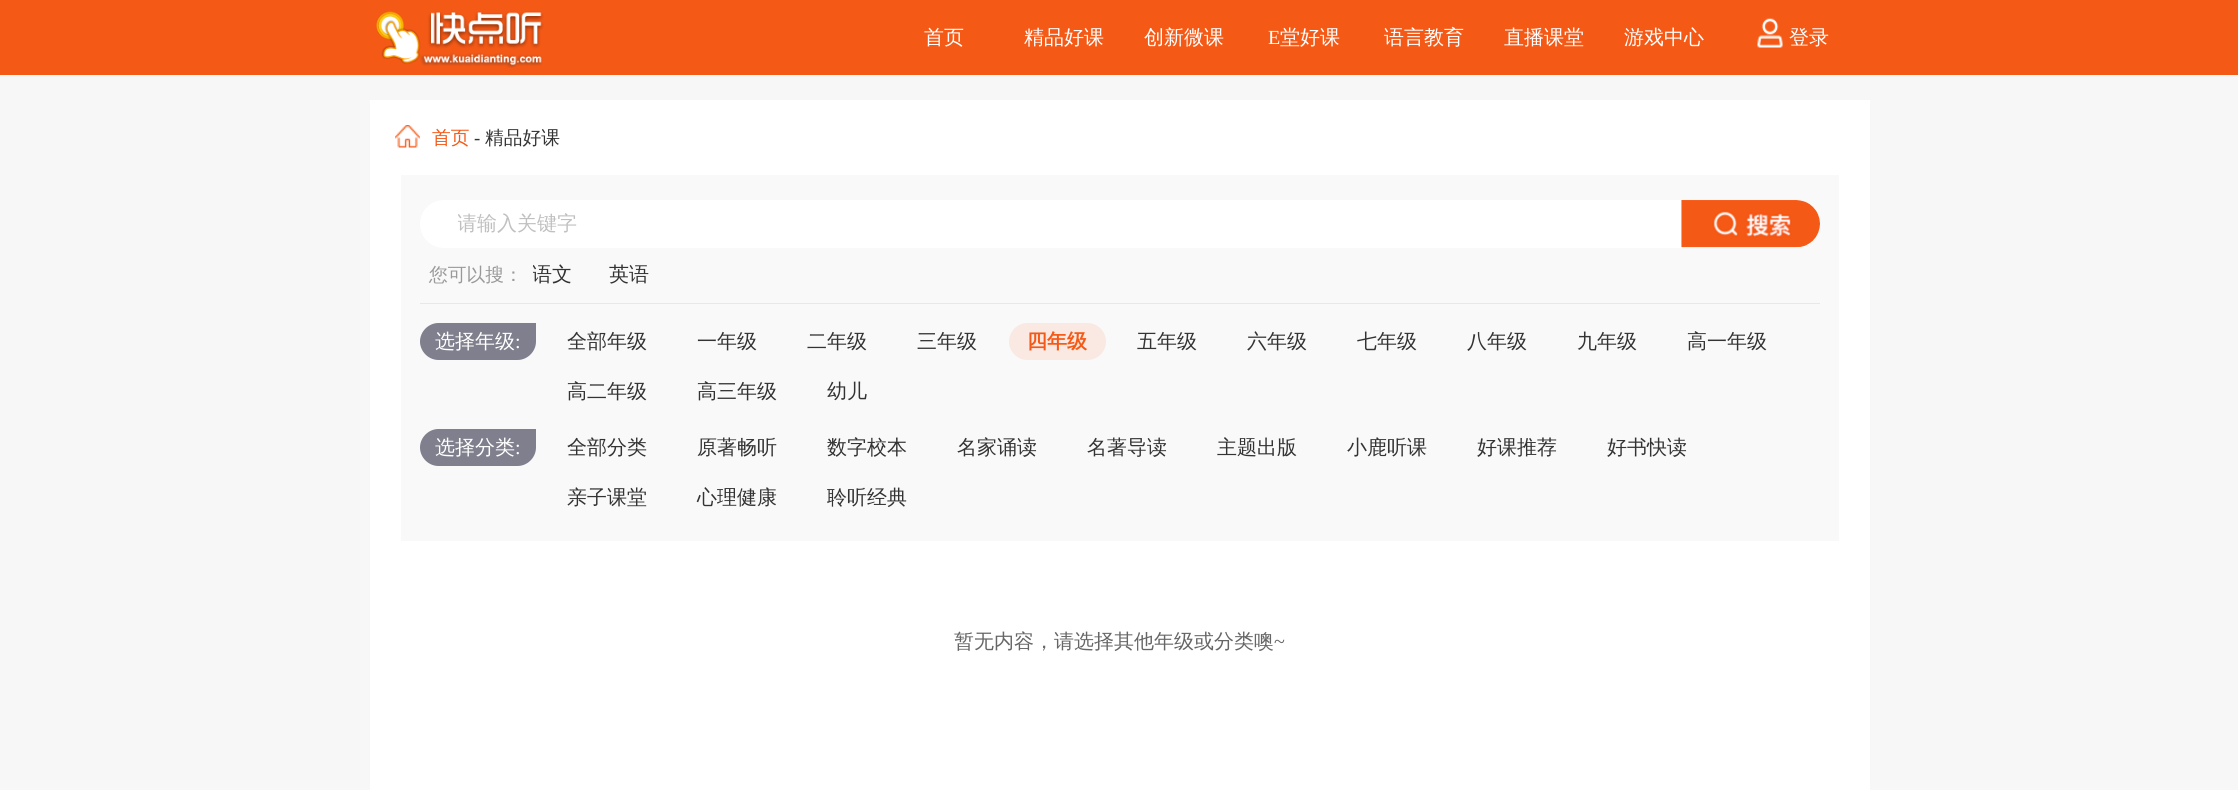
import math
import cairocffi as cairo

surface = cairo.ImageSurface(cairo.FORMAT_RGB24, 2238, 790)
ctx = cairo.Context(surface)
options = cairo.FontOptions()
options.set_hint_metrics(cairo.HINT_METRICS_OFF)
options.set_hint_style(cairo.HINT_STYLE_NONE)
ctx.set_font_options(options)
ctx.set_miter_limit(4)


def rgb(r, g, b):
    ctx.set_source_rgb(r / 255, g / 255, b / 255)


def face(family, size, italic, bold):
    ctx.select_font_face(family, cairo.FONT_SLANT_ITALIC if italic else cairo.FONT_SLANT_NORMAL, cairo.FONT_WEIGHT_BOLD if bold else cairo.FONT_WEIGHT_NORMAL)
    ctx.set_font_size(size)


def label(x, y, s):
    ctx.move_to(x, y)
    ctx.show_text(s)


def rect(x, y, w, h):
    ctx.rectangle(x, y, w, h)
    ctx.fill()


def rrect(x, y, w, h, r):
    ctx.new_sub_path()
    for i, (u, v) in enumerate([(x + w - r, y + h - r), (x + r, y + h - r), (x + r, y + r), (x + w - r, y + r)]):
        ctx.arc(u, v, r, i * math.pi / 2, (i + 1) * math.pi / 2)
    ctx.close_path()


def image(path, x, y, w, h):
    ctx.save()
    ctx.set_source_surface(cairo.ImageSurface.create_from_png(path), x, y)
    ctx.rectangle(x, y, w, h)
    ctx.fill()
    ctx.restore()


rgb(247, 247, 247)
ctx.paint()
rgb(245, 89, 22)
rect(0, 0, 2238, 75)
image('image0.png', 376, 11, 168, 57)
face('WenQuanYi Zen Hei Medium', 20, 0, 0)
rgb(255, 255, 255)
label(924, 44, '首页')
label(1024, 44, '精品好课')
label(1144, 44, '创新微课')
face('Liberation Serif', 20, 0, 0)
label(1268, 44, 'E')
face('WenQuanYi Zen Hei Medium', 20, 0, 0)
label(1280, 44, '堂好课')
label(1384, 44, '语言教育')
label(1504, 44, '直播课堂')
label(1624, 44, '游戏中心')
image('image1.png', 1757, 18, 26, 30)
label(1789, 44, '登录')
rect(370, 100, 1500, 690)
image('image2.png', 395, 125, 25, 23)
face('WenQuanYi Zen Hei Medium', 18.75, 0, 0)
rgb(245, 89, 22)
label(432, 144, '首页')
face('Liberation Serif', 18.75, 0, 0)
rgb(51, 51, 51)
label(474, 144, '-')
face('WenQuanYi Zen Hei Medium', 18.75, 0, 0)
label(485, 144, '精品好课')
rgb(249, 249, 249)
rect(401, 175, 1438, 366)
rgb(255, 255, 255)
rrect(420, 200, 1400, 48, 24)
ctx.fill()
ctx.save()
ctx.rectangle(458, 211, 1135, 27)
ctx.clip()
face('WenQuanYi Zen Hei Medium', 20, 0, 0)
rgb(192, 192, 192)
label(457, 230, '请输入关键字')
ctx.restore()
image('image3.png', 1681, 200, 139, 48)
rgb(153, 153, 153)
label(429, 281, '您可以搜：')
ctx.save()
ctx.rectangle(533, 260, 1275, 43)
ctx.clip()
face('WenQuanYi Zen Hei Medium', 20, 0, 0)
rgb(51, 51, 51)
label(532, 281, '语文')
ctx.restore()
face('WenQuanYi Zen Hei Medium', 20, 0, 0)
rgb(51, 51, 51)
label(609, 281, '英语')
rgb(232, 232, 232)
rect(420, 303, 1400, 1)
rgb(127, 127, 141)
ctx.new_path()
ctx.move_to(438.5, 323)
ctx.line_to(536, 323)
ctx.line_to(536, 341.5)
ctx.curve_to(536, 351.5, 527.5, 360, 517.5, 360)
ctx.line_to(438.5, 360)
ctx.curve_to(428.5, 360, 420, 351.5, 420, 341.5)
ctx.curve_to(420, 331.5, 428.5, 323, 438.5, 323)
ctx.close_path()
ctx.fill()
rgb(255, 255, 255)
label(435, 348, '选择年级')
face('Liberation Serif', 20, 0, 0)
label(515, 348, ':')
face('WenQuanYi Zen Hei Medium', 20, 0, 0)
rgb(51, 51, 51)
label(567, 348, '全部年级')
label(697, 348, '一年级')
label(807, 348, '二年级')
label(917, 348, '三年级')
rgb(249, 233, 226)
rrect(1009, 323, 97, 37, 18.5)
ctx.fill()
face('WenQuanYi Zen Hei', 20, 0, 1)
rgb(245, 89, 22)
label(1027, 348, '四年级')
face('WenQuanYi Zen Hei Medium', 20, 0, 0)
rgb(51, 51, 51)
label(1137, 348, '五年级')
label(1247, 348, '六年级')
label(1357, 348, '七年级')
label(1467, 348, '八年级')
label(1577, 348, '九年级')
label(1687, 348, '高一年级')
label(567, 398, '高二年级')
label(697, 398, '高三年级')
label(827, 398, '幼儿')
rgb(127, 127, 141)
ctx.new_path()
ctx.move_to(438.5, 429)
ctx.line_to(536, 429)
ctx.line_to(536, 447.5)
ctx.curve_to(536, 457.5, 527.5, 466, 517.5, 466)
ctx.line_to(438.5, 466)
ctx.curve_to(428.5, 466, 420, 457.5, 420, 447.5)
ctx.curve_to(420, 437.5, 428.5, 429, 438.5, 429)
ctx.close_path()
ctx.fill()
rgb(255, 255, 255)
label(435, 454, '选择分类')
face('Liberation Serif', 20, 0, 0)
label(515, 454, ':')
face('WenQuanYi Zen Hei Medium', 20, 0, 0)
rgb(51, 51, 51)
label(567, 454, '全部分类')
label(697, 454, '原著畅听')
label(827, 454, '数字校本')
label(957, 454, '名家诵读')
label(1087, 454, '名著导读')
label(1217, 454, '主题出版')
label(1347, 454, '小鹿听课')
label(1477, 454, '好课推荐')
label(1607, 454, '好书快读')
label(567, 504, '亲子课堂')
label(697, 504, '心理健康')
label(827, 504, '聆听经典')
rgb(102, 102, 102)
label(954, 648, '暂无内容，请选择其他年级或分类噢')
face('Liberation Serif', 20, 0, 0)
label(1274, 648, '~')
surface.write_to_png('render.png')
